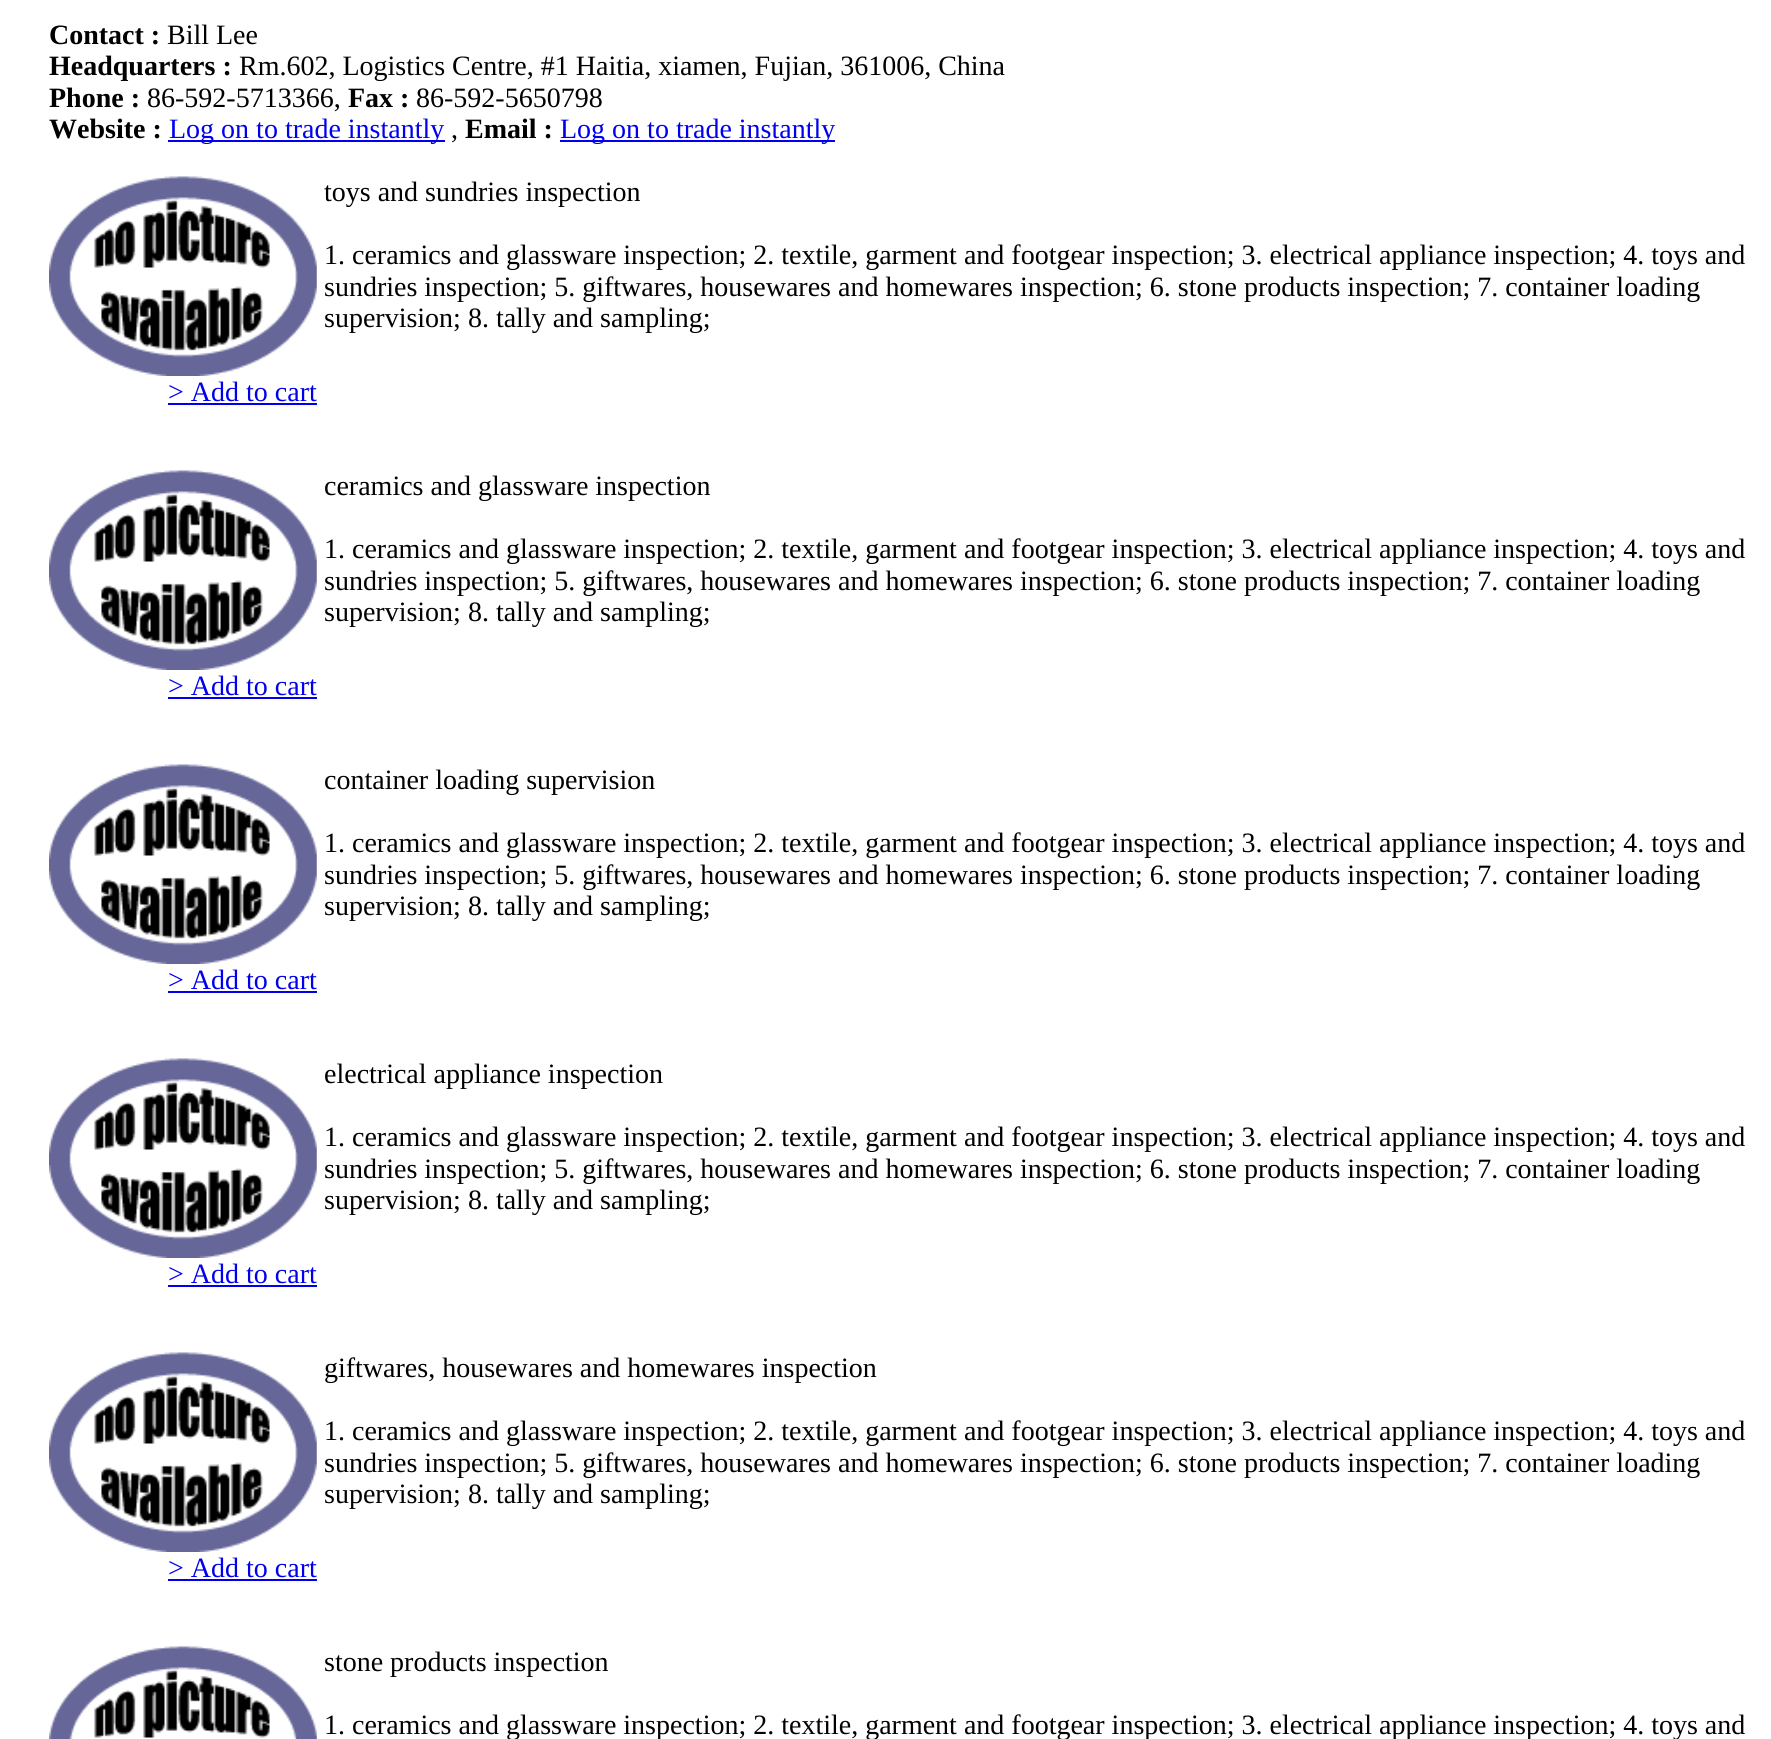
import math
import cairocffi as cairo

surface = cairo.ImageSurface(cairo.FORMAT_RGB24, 1771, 1739)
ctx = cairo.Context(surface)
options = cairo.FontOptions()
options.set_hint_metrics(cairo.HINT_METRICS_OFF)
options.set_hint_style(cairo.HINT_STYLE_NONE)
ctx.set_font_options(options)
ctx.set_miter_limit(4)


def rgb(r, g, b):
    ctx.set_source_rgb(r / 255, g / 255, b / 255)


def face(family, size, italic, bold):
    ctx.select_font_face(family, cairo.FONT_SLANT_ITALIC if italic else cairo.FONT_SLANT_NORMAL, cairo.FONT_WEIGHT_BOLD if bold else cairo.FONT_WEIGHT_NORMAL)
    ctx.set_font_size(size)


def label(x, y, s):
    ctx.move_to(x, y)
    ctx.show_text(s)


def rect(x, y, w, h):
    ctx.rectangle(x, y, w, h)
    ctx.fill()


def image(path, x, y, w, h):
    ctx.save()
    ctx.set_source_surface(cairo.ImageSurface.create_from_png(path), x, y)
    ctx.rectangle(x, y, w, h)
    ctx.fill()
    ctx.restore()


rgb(255, 255, 255)
ctx.paint()
face('Liberation Serif', 28, 0, 1)
rgb(0, 0, 0)
label(49, 44, 'Contact :')
face('Liberation Serif', 28, 0, 0)
label(167, 44, 'Bill Lee')
face('Liberation Serif', 28, 0, 1)
label(49, 75, 'Headquarters :')
face('Liberation Serif', 28, 0, 0)
label(239, 75, 'Rm.602, Logistics Centre, #1 Haitia, xiamen, Fujian, 361006, China')
face('Liberation Serif', 28, 0, 1)
label(49, 107, 'Phone :')
face('Liberation Serif', 28, 0, 0)
label(147, 107, '86-592-5713366,')
face('Liberation Serif', 28, 0, 1)
label(348, 107, 'Fax :')
face('Liberation Serif', 28, 0, 0)
label(416, 107, '86-592-5650798')
face('Liberation Serif', 28, 0, 1)
label(49, 138, 'Website :')
rgb(0, 0, 238)
rect(168, 140, 277, 2)
face('Liberation Serif', 28, 0, 0)
label(169, 138, 'Log on to trade instantly')
rgb(0, 0, 0)
label(451, 138, ',')
face('Liberation Serif', 28, 0, 1)
label(465, 138, 'Email :')
rgb(0, 0, 238)
rect(560, 140, 275, 2)
face('Liberation Serif', 28, 0, 0)
label(560, 138, 'Log on to trade instantly')
image('image0.png', 49, 176, 268, 200)
rgb(0, 0, 0)
label(324, 201, 'toys and sundries inspection')
label(324, 264, '1. ceramics and glassware inspection; 2. textile, garment and footgear inspection; 3. electrical appliance inspection; 4. toys and')
label(324, 296, 'sundries inspection; 5. giftwares, housewares and homewares inspection; 6. stone products inspection; 7. container loading')
label(324, 327, 'supervision; 8. tally and sampling;')
rgb(0, 0, 238)
label(168, 401, '> Add to cart')
rect(168, 403, 149, 2)
image('image0.png', 49, 470, 268, 200)
rgb(0, 0, 0)
label(324, 495, 'ceramics and glassware inspection')
label(324, 558, '1. ceramics and glassware inspection; 2. textile, garment and footgear inspection; 3. electrical appliance inspection; 4. toys and')
label(324, 590, 'sundries inspection; 5. giftwares, housewares and homewares inspection; 6. stone products inspection; 7. container loading')
label(324, 621, 'supervision; 8. tally and sampling;')
rgb(0, 0, 238)
label(168, 695, '> Add to cart')
rect(168, 697, 149, 2)
image('image0.png', 49, 764, 268, 200)
rgb(0, 0, 0)
label(324, 789, 'container loading supervision')
label(324, 852, '1. ceramics and glassware inspection; 2. textile, garment and footgear inspection; 3. electrical appliance inspection; 4. toys and')
label(324, 884, 'sundries inspection; 5. giftwares, housewares and homewares inspection; 6. stone products inspection; 7. container loading')
label(324, 915, 'supervision; 8. tally and sampling;')
rgb(0, 0, 238)
label(168, 989, '> Add to cart')
rect(168, 991, 149, 2)
image('image0.png', 49, 1058, 268, 200)
rgb(0, 0, 0)
label(324, 1083, 'electrical appliance inspection')
label(324, 1146, '1. ceramics and glassware inspection; 2. textile, garment and footgear inspection; 3. electrical appliance inspection; 4. toys and')
label(324, 1178, 'sundries inspection; 5. giftwares, housewares and homewares inspection; 6. stone products inspection; 7. container loading')
label(324, 1209, 'supervision; 8. tally and sampling;')
rgb(0, 0, 238)
label(168, 1283, '> Add to cart')
rect(168, 1285, 149, 2)
image('image0.png', 49, 1352, 268, 200)
rgb(0, 0, 0)
label(324, 1377, 'giftwares, housewares and homewares inspection')
label(324, 1440, '1. ceramics and glassware inspection; 2. textile, garment and footgear inspection; 3. electrical appliance inspection; 4. toys and')
label(324, 1472, 'sundries inspection; 5. giftwares, housewares and homewares inspection; 6. stone products inspection; 7. container loading')
label(324, 1503, 'supervision; 8. tally and sampling;')
rgb(0, 0, 238)
label(168, 1577, '> Add to cart')
rect(168, 1579, 149, 2)
image('image1.png', 49, 1646, 268, 93)
rgb(0, 0, 0)
label(324, 1671, 'stone products inspection')
label(324, 1734, '1. ceramics and glassware inspection; 2. textile, garment and footgear inspection; 3. electrical appliance inspection; 4. toys and')
surface.write_to_png('render.png')
